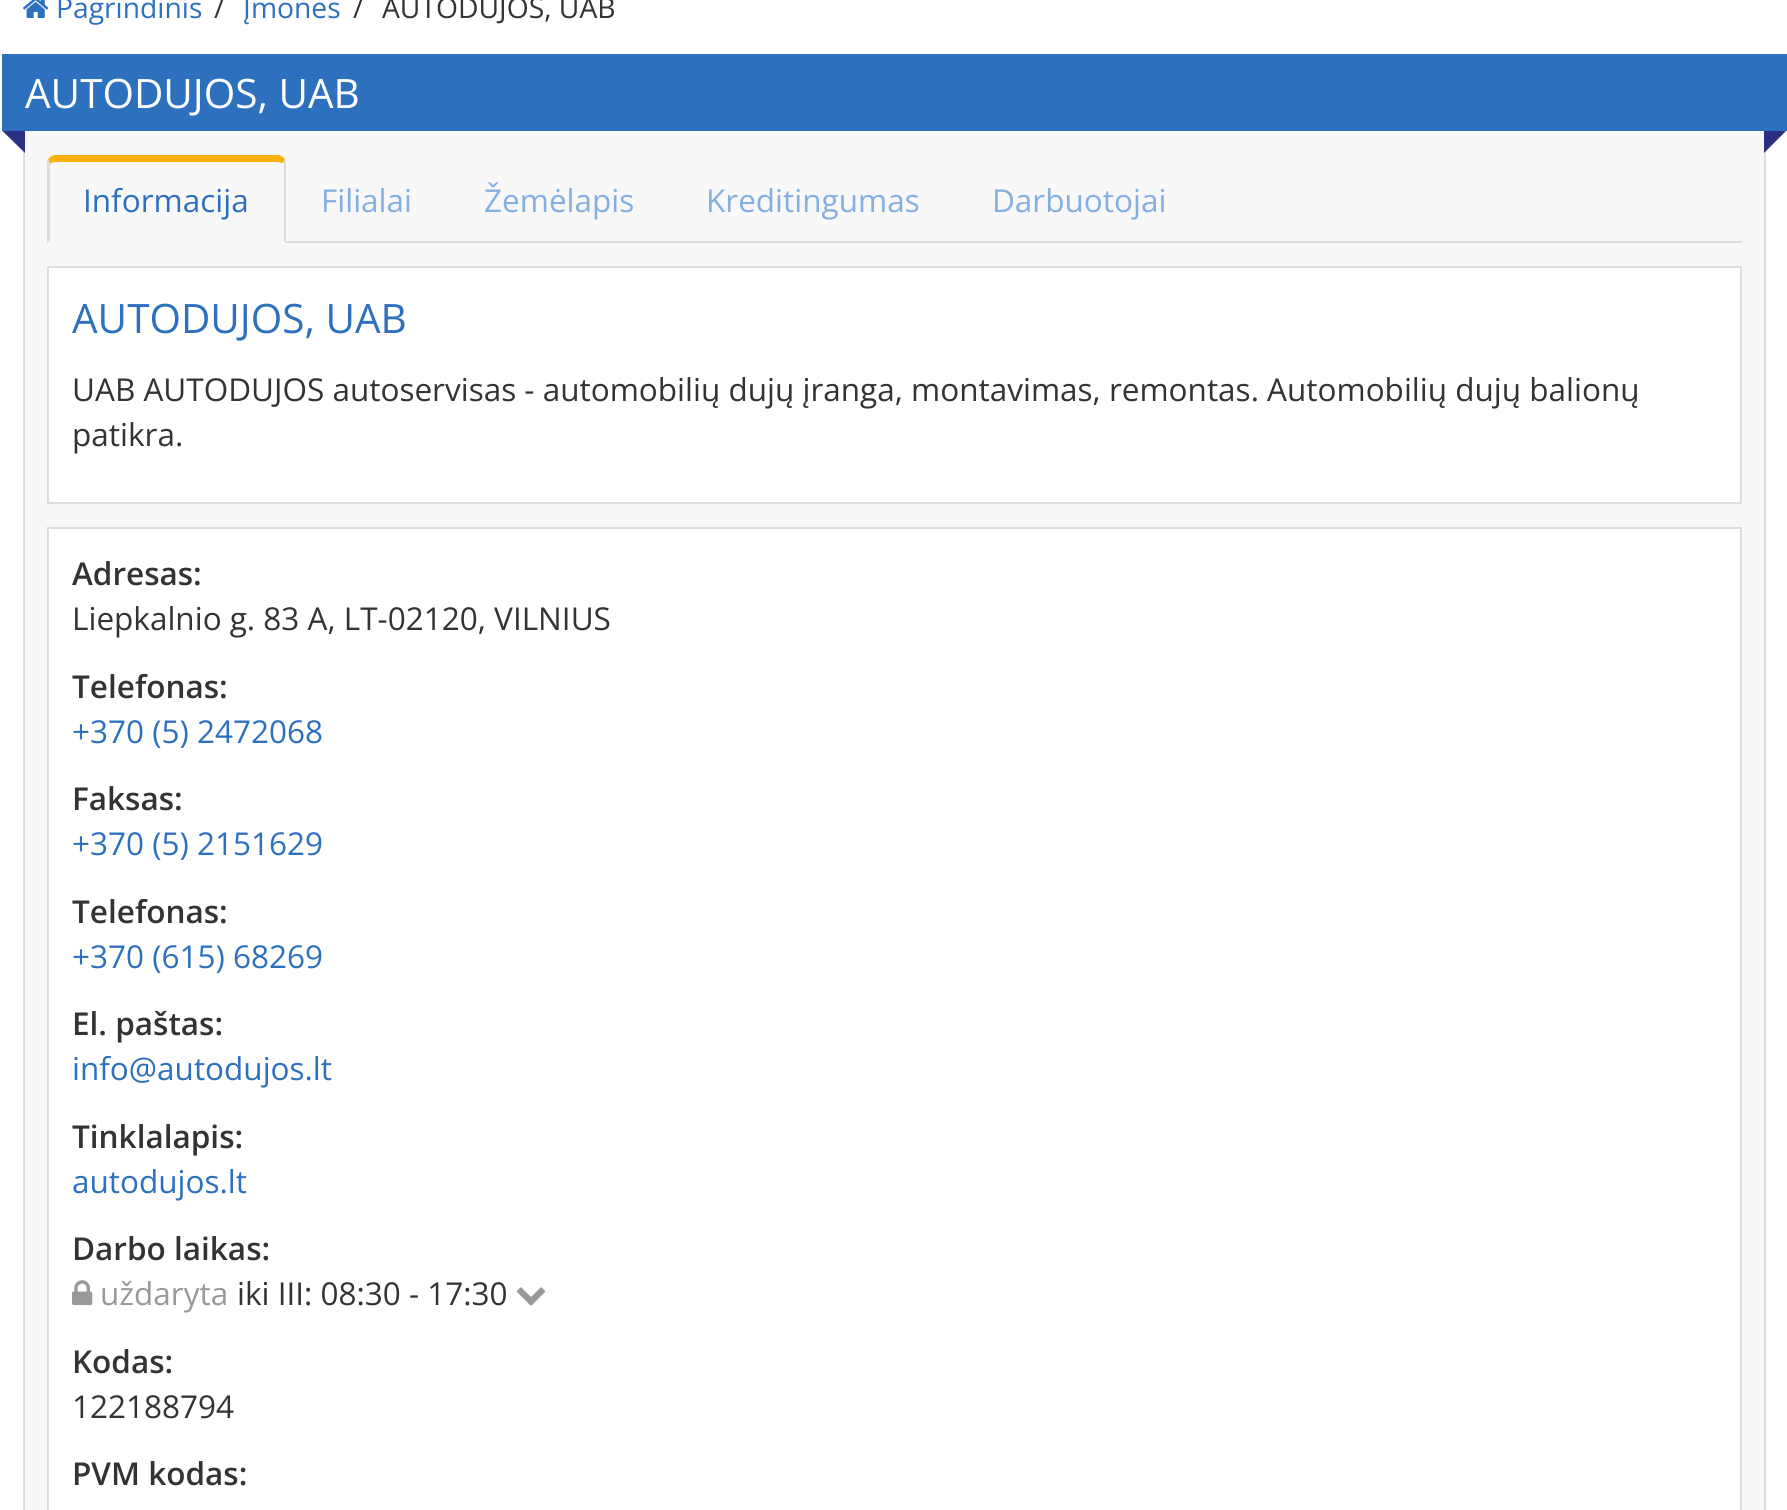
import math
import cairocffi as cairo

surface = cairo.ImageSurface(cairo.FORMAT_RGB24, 1787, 1510)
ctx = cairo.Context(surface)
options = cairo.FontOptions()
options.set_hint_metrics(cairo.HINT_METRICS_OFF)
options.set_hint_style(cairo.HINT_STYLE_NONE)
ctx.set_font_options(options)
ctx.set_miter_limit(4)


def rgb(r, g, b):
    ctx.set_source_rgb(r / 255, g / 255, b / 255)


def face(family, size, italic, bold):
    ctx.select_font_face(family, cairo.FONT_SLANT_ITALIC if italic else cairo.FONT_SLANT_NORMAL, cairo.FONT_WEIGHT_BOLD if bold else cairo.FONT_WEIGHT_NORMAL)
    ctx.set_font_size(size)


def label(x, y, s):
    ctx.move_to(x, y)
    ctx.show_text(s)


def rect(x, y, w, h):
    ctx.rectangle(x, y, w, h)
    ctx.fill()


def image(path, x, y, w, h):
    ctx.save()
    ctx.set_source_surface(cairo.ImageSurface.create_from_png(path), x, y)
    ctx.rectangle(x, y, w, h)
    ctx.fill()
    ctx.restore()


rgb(255, 255, 255)
ctx.paint()
image('image0.png', 23, 0, 26, 18)
face('Open Sans', 28.25, 0, 0)
rgb(45, 112, 190)
label(56, 18, 'Pagrindinis')
rgb(51, 51, 51)
label(214, 18, '/')
rgb(45, 112, 190)
label(243, 18, 'Įmonės')
rgb(51, 51, 51)
label(353, 18, '/')
label(382, 18, 'AUTODUJOS, UAB')
rgb(248, 248, 248)
rect(25, 131, 1739, 1379)
rgb(221, 221, 221)
rect(1764, 151, 2, 1359)
rect(23, 151, 2, 1359)
rgb(45, 112, 190)
rect(2, 54, 1785, 77)
face('Open Sans', 40.5, 0, 0)
rgb(255, 255, 255)
label(25, 108, 'AUTODUJOS, UAB')
ctx.save()
ctx.rectangle(2, 131, 23, 22)
ctx.clip()
rgb(43, 47, 130)
ctx.new_path()
ctx.move_to(2, 130.5)
ctx.line_to(25, 130.5)
ctx.line_to(25, 153)
ctx.close_path()
ctx.fill()
ctx.restore()
ctx.save()
ctx.rectangle(1764, 131, 23, 22)
ctx.clip()
rgb(43, 47, 130)
ctx.new_path()
ctx.move_to(1764, 153)
ctx.line_to(1764, 130.5)
ctx.line_to(1786.5, 130.5)
ctx.close_path()
ctx.fill()
ctx.restore()
rgb(221, 221, 221)
rect(47, 241, 1695, 2)
rgb(250, 178, 11)
ctx.new_path()
ctx.move_to(56, 162)
ctx.curve_to(53, 162, 51, 163, 50, 164)
ctx.line_to(48, 159)
ctx.curve_to(50, 157, 52, 156, 54, 155)
ctx.line_to(279, 155)
ctx.curve_to(281, 156, 283, 157, 285, 159)
ctx.line_to(283, 163)
ctx.line_to(277, 162)
ctx.close_path()
ctx.fill()
rgb(221, 221, 221)
ctx.new_path()
ctx.move_to(286, 162)
ctx.line_to(286, 243)
ctx.line_to(284, 241)
ctx.line_to(284, 164)
ctx.line_to(283, 163)
ctx.line_to(285, 159)
ctx.close_path()
ctx.fill()
rgb(248, 248, 248)
ctx.new_path()
ctx.move_to(286, 243)
ctx.line_to(284, 241)
ctx.line_to(50, 241)
ctx.line_to(50, 240)
ctx.line_to(47, 243)
ctx.close_path()
ctx.fill()
rgb(221, 221, 221)
ctx.new_path()
ctx.move_to(47, 243)
ctx.line_to(47, 162)
ctx.line_to(48, 159)
ctx.line_to(50, 164)
ctx.line_to(50, 240)
ctx.close_path()
ctx.fill()
face('Open Sans', 31.5, 0, 0)
rgb(45, 112, 190)
label(83, 212, 'Informacija')
rgb(131, 175, 226)
label(321, 212, 'Filialai')
label(484, 212, 'Žemėlapis')
label(706, 212, 'Kreditingumas')
label(992, 212, 'Darbuotojai')
rgb(255, 255, 255)
ctx.rectangle(48, 267, 1693, 236)
ctx.fill_preserve()
rgb(221, 221, 221)
ctx.stroke()
face('Open Sans', 40.5, 0, 0)
rgb(45, 112, 190)
label(72, 333, 'AUTODUJOS, UAB')
face('Open Sans', 31.5, 0, 0)
rgb(51, 51, 51)
label(72, 401, 'UAB AUTODUJOS autoservisas - automobilių dujų įranga, montavimas, remontas. Automobilių dujų balionų')
label(72, 446, 'patikra.')
rgb(255, 255, 255)
ctx.rectangle(48, 528, 1693, 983)
ctx.fill_preserve()
rgb(221, 221, 221)
ctx.stroke()
face('Open Sans SemiBold', 31.5, 0, 0)
rgb(51, 51, 51)
label(72, 585, 'Adresas:')
face('Open Sans', 31.5, 0, 0)
label(72, 630, 'Liepkalnio g. 83 A, LT-02120, VILNIUS')
face('Open Sans SemiBold', 31.5, 0, 0)
label(72, 698, 'Telefonas:')
face('Open Sans', 31.5, 0, 0)
rgb(45, 112, 190)
label(72, 743, '+370 (5) 2472068')
face('Open Sans SemiBold', 31.5, 0, 0)
rgb(51, 51, 51)
label(72, 810, 'Faksas:')
face('Open Sans', 31.5, 0, 0)
rgb(45, 112, 190)
label(72, 855, '+370 (5) 2151629')
face('Open Sans SemiBold', 31.5, 0, 0)
rgb(51, 51, 51)
label(72, 923, 'Telefonas:')
face('Open Sans', 31.5, 0, 0)
rgb(45, 112, 190)
label(72, 968, '+370 (615) 68269')
face('Open Sans SemiBold', 31.5, 0, 0)
rgb(51, 51, 51)
label(72, 1035, 'El. paštas:')
face('Open Sans', 31.5, 0, 0)
rgb(45, 112, 190)
label(72, 1080, 'info@autodujos.lt')
face('Open Sans SemiBold', 31.5, 0, 0)
rgb(51, 51, 51)
label(72, 1148, 'Tinklalapis:')
face('Open Sans', 31.5, 0, 0)
rgb(45, 112, 190)
label(72, 1193, 'autodujos.lt')
face('Open Sans SemiBold', 31.5, 0, 0)
rgb(51, 51, 51)
label(72, 1260, 'Darbo laikas:')
image('image1.png', 72, 1280, 21, 25)
face('Open Sans', 31.5, 0, 0)
rgb(153, 153, 153)
label(100, 1305, 'uždaryta')
rgb(51, 51, 51)
label(237, 1305, 'iki III: 08:30 - 17:30')
image('image2.png', 516, 1287, 30, 19)
face('Open Sans SemiBold', 31.5, 0, 0)
label(72, 1373, 'Kodas:')
face('Open Sans', 31.5, 0, 0)
label(72, 1418, '122188794')
face('Open Sans SemiBold', 31.5, 0, 0)
label(72, 1485, 'PVM kodas:')
surface.write_to_png('render.png')
